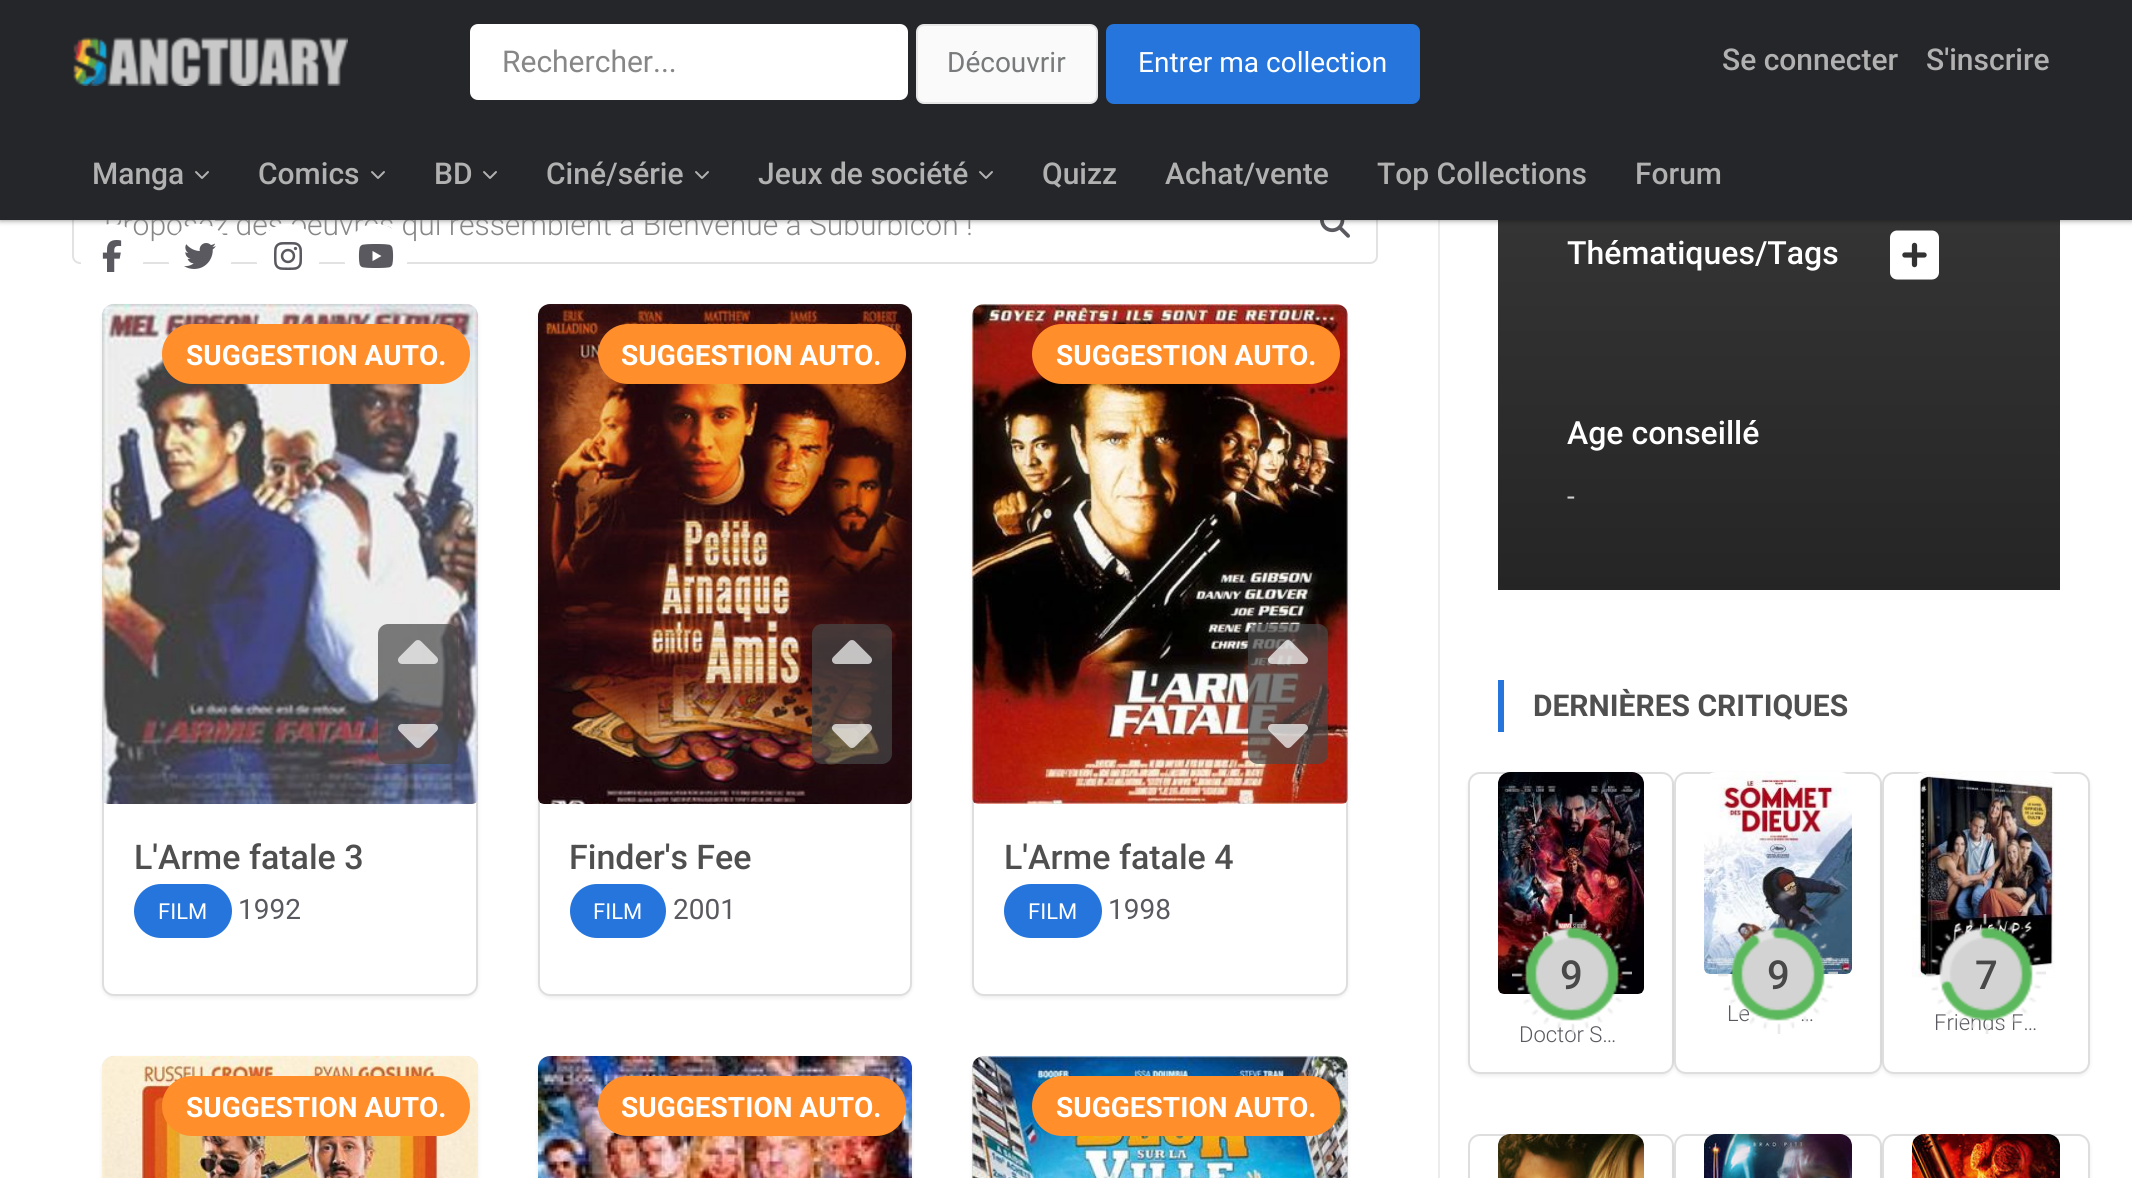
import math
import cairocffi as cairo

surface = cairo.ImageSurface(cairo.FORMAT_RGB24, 2132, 1178)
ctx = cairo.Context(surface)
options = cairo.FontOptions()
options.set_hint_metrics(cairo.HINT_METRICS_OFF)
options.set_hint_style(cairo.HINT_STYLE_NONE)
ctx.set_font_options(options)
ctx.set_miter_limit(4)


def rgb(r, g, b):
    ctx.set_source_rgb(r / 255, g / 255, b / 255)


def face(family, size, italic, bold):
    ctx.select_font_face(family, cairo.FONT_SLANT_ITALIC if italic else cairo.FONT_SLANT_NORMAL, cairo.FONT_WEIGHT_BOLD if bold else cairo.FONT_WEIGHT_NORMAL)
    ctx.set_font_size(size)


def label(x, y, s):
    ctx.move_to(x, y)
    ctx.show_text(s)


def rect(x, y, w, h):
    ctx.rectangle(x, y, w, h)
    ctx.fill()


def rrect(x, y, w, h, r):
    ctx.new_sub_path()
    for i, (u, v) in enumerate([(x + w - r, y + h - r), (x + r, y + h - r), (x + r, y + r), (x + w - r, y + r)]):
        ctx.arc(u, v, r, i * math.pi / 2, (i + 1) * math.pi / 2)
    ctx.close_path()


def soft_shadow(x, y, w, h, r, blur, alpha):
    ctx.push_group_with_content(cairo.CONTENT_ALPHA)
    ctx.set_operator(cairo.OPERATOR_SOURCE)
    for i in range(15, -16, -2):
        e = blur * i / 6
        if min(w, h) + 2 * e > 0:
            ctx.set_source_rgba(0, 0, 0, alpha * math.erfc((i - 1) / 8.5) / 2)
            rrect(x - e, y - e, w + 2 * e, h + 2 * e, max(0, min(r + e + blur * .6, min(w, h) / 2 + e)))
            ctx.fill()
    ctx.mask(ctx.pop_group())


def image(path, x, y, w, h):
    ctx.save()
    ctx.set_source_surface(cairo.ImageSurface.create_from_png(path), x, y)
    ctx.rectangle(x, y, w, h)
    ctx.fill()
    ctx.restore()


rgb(255, 255, 255)
ctx.paint()
rrect(73, 185, 1304, 78, 7)
rgb(226, 226, 226)
ctx.stroke()
image('image6.png', 1320, 220, 30, 18)
rgb(236, 236, 236)
rect(1438, 220, 2, 958)
gradient = cairo.LinearGradient(1779, -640, 1779, 590)
gradient.add_color_stop_rgba(0, 0.341, 0.341, 0.341, 1)
gradient.add_color_stop_rgba(1, 0.145, 0.145, 0.145, 1)
ctx.set_source(gradient)
rect(1498, 220, 562, 370)
rgb(0, 0, 0)
soft_shadow(0, 0, 2132, 220, 0, 3, 0.5)
face('Roboto Light', 30, 0, 0)
rgb(135, 135, 135)
label(104, 235, 'Proposez des oeuvres qui ressemblent à Bienvenue à Suburbicon !')
rgb(36, 38, 41)
rect(0, 0, 2132, 220)
image('image0.png', 73, 37, 275, 49)
rgb(255, 255, 255)
rrect(470, 24, 438, 76, 8)
ctx.fill()
face('Roboto', 30, 0, 0)
rgb(135, 135, 135)
label(502, 72, 'Rechercher...')
rgb(250, 250, 250)
rrect(917, 25, 180, 78, 7)
ctx.fill_preserve()
rgb(230, 230, 230)
ctx.stroke()
face('Roboto', 28, 0, 0)
rgb(120, 122, 123)
label(947, 72, 'Découvrir')
rgb(37, 117, 220)
rrect(1107, 25, 312, 78, 7)
ctx.fill_preserve()
ctx.stroke()
rgb(255, 255, 255)
label(1138, 72, 'Entrer ma collection')
face('Roboto Medium', 30, 0, 0)
rgb(177, 177, 177)
label(1722, 70, 'Se connecter')
label(1926, 70, 'S\'inscrire')
label(92, 184, 'Manga')
image('image1.png', 195, 171, 14, 8)
label(258, 184, 'Comics')
image('image1.png', 371, 171, 14, 8)
label(434, 184, 'BD')
image('image1.png', 483, 171, 14, 8)
label(546, 184, 'Ciné/série')
image('image1.png', 695, 171, 14, 8)
label(758, 184, 'Jeux de société')
image('image1.png', 979, 171, 14, 8)
label(1042, 184, 'Quizz')
label(1165, 184, 'Achat/vente')
label(1377, 184, 'Top Collections')
label(1635, 184, 'Forum')
rgb(255, 255, 255)
ctx.new_path()
ctx.move_to(112, 288)
ctx.curve_to(142, 288, 156, 249, 131, 231)
ctx.curve_to(126, 226, 119, 224, 112, 224)
ctx.curve_to(105, 224, 98, 226, 93, 231)
ctx.curve_to(68, 249, 82, 288, 112, 288)
ctx.close_path()
ctx.fill()
image('image2.png', 102, 240, 20, 32)
ctx.new_path()
ctx.move_to(200, 288)
ctx.curve_to(230, 288, 244, 249, 219, 231)
ctx.curve_to(214, 226, 207, 224, 200, 224)
ctx.curve_to(193, 224, 186, 226, 181, 231)
ctx.curve_to(156, 249, 170, 288, 200, 288)
ctx.close_path()
ctx.fill()
image('image3.png', 184, 243, 32, 26)
ctx.new_path()
ctx.move_to(288, 288)
ctx.curve_to(318, 288, 332, 249, 307, 231)
ctx.curve_to(302, 226, 295, 224, 288, 224)
ctx.curve_to(281, 224, 274, 226, 269, 231)
ctx.curve_to(244, 249, 258, 288, 288, 288)
ctx.close_path()
ctx.fill()
image('image4.png', 274, 242, 28, 28)
ctx.new_path()
ctx.move_to(376, 288)
ctx.curve_to(406, 288, 420, 249, 395, 231)
ctx.curve_to(390, 226, 383, 224, 376, 224)
ctx.curve_to(369, 224, 362, 226, 357, 231)
ctx.curve_to(332, 249, 346, 288, 376, 288)
ctx.close_path()
ctx.fill()
image('image5.png', 358, 244, 36, 24)
rgb(0, 0, 0)
soft_shadow(102, 306, 376, 692, 12, 2, 0.07)
rgb(255, 255, 255)
rrect(103, 305, 374, 690, 11)
ctx.fill_preserve()
rgb(222, 222, 222)
ctx.stroke()
image('image7.png', 102, 304, 376, 500)
rgb(255, 142, 43)
rrect(162, 324, 308, 60, 30)
ctx.fill()
face('Roboto', 28, 0, 1)
rgb(255, 255, 255)
label(186, 365, 'SUGGESTION AUTO.')
ctx.set_source_rgba(0.282, 0.282, 0.282, 0.7)
rrect(378, 624, 80, 140, 10)
ctx.fill()
image('image8.png', 398, 640, 40, 24)
image('image9.png', 398, 724, 40, 24)
face('Roboto Medium', 34, 0, 0)
rgb(79, 79, 79)
label(134, 869, 'L\'Arme fatale 3')
rgb(37, 117, 220)
rrect(134, 884, 98, 54, 27)
ctx.fill()
face('Roboto', 22, 0, 0)
rgb(255, 255, 255)
label(158, 919, 'FILM')
face('Roboto', 28, 0, 0)
rgb(89, 89, 95)
label(238, 919, '1992')
rgb(0, 0, 0)
soft_shadow(538, 306, 374, 692, 12, 2, 0.07)
rgb(255, 255, 255)
rrect(539, 305, 372, 690, 11)
ctx.fill_preserve()
rgb(222, 222, 222)
ctx.stroke()
image('image10.png', 538, 304, 374, 500)
rgb(255, 142, 43)
rrect(598, 324, 308, 60, 30)
ctx.fill()
face('Roboto', 28, 0, 1)
rgb(255, 255, 255)
label(621, 365, 'SUGGESTION AUTO.')
ctx.set_source_rgba(0.282, 0.282, 0.282, 0.7)
rrect(812, 624, 80, 140, 10)
ctx.fill()
image('image11.png', 832, 640, 40, 24)
image('image12.png', 832, 724, 40, 24)
face('Roboto Medium', 34, 0, 0)
rgb(79, 79, 79)
label(569, 869, 'Finder\'s Fee')
rgb(37, 117, 220)
rrect(570, 884, 96, 54, 27)
ctx.fill()
face('Roboto', 22, 0, 0)
rgb(255, 255, 255)
label(593, 919, 'FILM')
face('Roboto', 28, 0, 0)
rgb(89, 89, 95)
label(673, 919, '2001')
rgb(0, 0, 0)
soft_shadow(972, 306, 376, 692, 12, 2, 0.07)
rgb(255, 255, 255)
rrect(973, 305, 374, 690, 11)
ctx.fill_preserve()
rgb(222, 222, 222)
ctx.stroke()
image('image13.png', 972, 304, 376, 500)
rgb(255, 142, 43)
rrect(1032, 324, 308, 60, 30)
ctx.fill()
face('Roboto', 28, 0, 1)
rgb(255, 255, 255)
label(1056, 365, 'SUGGESTION AUTO.')
ctx.set_source_rgba(0.282, 0.282, 0.282, 0.7)
rrect(1248, 624, 80, 140, 10)
ctx.fill()
image('image14.png', 1268, 640, 40, 24)
image('image15.png', 1268, 724, 40, 24)
face('Roboto Medium', 34, 0, 0)
rgb(79, 79, 79)
label(1004, 869, 'L\'Arme fatale 4')
rgb(37, 117, 220)
rrect(1004, 884, 98, 54, 27)
ctx.fill()
face('Roboto', 22, 0, 0)
rgb(255, 255, 255)
label(1028, 919, 'FILM')
face('Roboto', 28, 0, 0)
rgb(89, 89, 95)
label(1108, 919, '1998')
rgb(0, 0, 0)
soft_shadow(102, 1058, 376, 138, 12, 2, 0.07)
rrect(103, 1057, 374, 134, 11)
rgb(222, 222, 222)
ctx.stroke()
image('image16.png', 102, 1056, 376, 122)
rgb(255, 142, 43)
rrect(162, 1076, 308, 60, 30)
ctx.fill()
face('Roboto', 28, 0, 1)
rgb(255, 255, 255)
label(186, 1117, 'SUGGESTION AUTO.')
rgb(0, 0, 0)
soft_shadow(538, 1058, 374, 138, 12, 2, 0.07)
rrect(539, 1057, 372, 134, 11)
rgb(222, 222, 222)
ctx.stroke()
image('image17.png', 538, 1056, 374, 122)
rgb(255, 142, 43)
rrect(598, 1076, 308, 60, 30)
ctx.fill()
rgb(255, 255, 255)
label(621, 1117, 'SUGGESTION AUTO.')
rgb(0, 0, 0)
soft_shadow(972, 1058, 376, 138, 12, 2, 0.07)
rrect(973, 1057, 374, 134, 11)
rgb(222, 222, 222)
ctx.stroke()
image('image18.png', 972, 1056, 376, 122)
rgb(255, 142, 43)
rrect(1032, 1076, 308, 60, 30)
ctx.fill()
rgb(255, 255, 255)
label(1056, 1117, 'SUGGESTION AUTO.')
face('Roboto Medium', 32, 0, 0)
label(1567, 264, 'Thématiques/Tags')
image('image19.png', 1890, 230, 49, 50)
label(1567, 444, 'Age conseillé')
face('Roboto', 28, 0, 0)
rgb(208, 208, 208)
label(1567, 506, '-')
rgb(37, 117, 220)
rect(1498, 680, 6, 52)
face('Roboto', 30, 0, 1)
rgb(79, 79, 79)
label(1533, 716, 'DERNIÈRES CRITIQUES')
rgb(0, 0, 0)
soft_shadow(1468, 774, 206, 302, 12, 2, 0.07)
rgb(255, 255, 255)
rrect(1469, 773, 204, 300, 11)
ctx.fill_preserve()
rgb(222, 222, 222)
ctx.stroke()
image('image20.png', 1498, 772, 146, 222)
rgb(211, 211, 211)
ctx.arc(1572, 974, 40, 0, 2 * math.pi)
ctx.fill()
face('Roboto Medium', 40, 0, 0)
rgb(72, 72, 72)
label(1560, 989, '9')
face('Roboto Light', 22, 0, 0)
rgb(89, 89, 95)
label(1519, 1042, 'Doctor S…')
image('image21.png', 1512, 914, 120, 120)
rgb(0, 0, 0)
soft_shadow(1674, 774, 208, 302, 12, 2, 0.07)
rgb(255, 255, 255)
rrect(1675, 773, 206, 300, 11)
ctx.fill_preserve()
rgb(222, 222, 222)
ctx.stroke()
image('image22.png', 1704, 772, 148, 202)
rgb(89, 89, 95)
label(1727, 1021, 'Le')
rgb(211, 211, 211)
ctx.new_path()
ctx.arc(1778, 974, 40, 0, 2 * math.pi)
ctx.fill()
face('Roboto Medium', 40, 0, 0)
rgb(72, 72, 72)
label(1767, 989, '9')
face('Roboto Light', 22, 0, 0)
rgb(89, 89, 95)
label(1800, 1021, '…')
image('image23.png', 1718, 914, 120, 120)
rgb(0, 0, 0)
soft_shadow(1882, 774, 208, 302, 12, 2, 0.07)
rgb(255, 255, 255)
rrect(1883, 773, 206, 300, 11)
ctx.fill_preserve()
rgb(222, 222, 222)
ctx.stroke()
image('image24.png', 1912, 772, 143, 206)
rgb(89, 89, 95)
label(1934, 1030, 'Friends F…')
rgb(211, 211, 211)
ctx.new_path()
ctx.arc(1986, 974, 40, 0, 2 * math.pi)
ctx.fill()
face('Roboto Medium', 40, 0, 0)
rgb(72, 72, 72)
label(1975, 989, '7')
image('image25.png', 1926, 914, 120, 120)
rrect(1469, 1135, 204, 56, 11)
rgb(222, 222, 222)
ctx.stroke()
image('image26.png', 1498, 1134, 146, 44)
rgb(0, 0, 0)
soft_shadow(1674, 1136, 208, 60, 12, 2, 0.07)
rgb(255, 255, 255)
rrect(1675, 1135, 206, 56, 11)
ctx.fill_preserve()
rgb(222, 222, 222)
ctx.stroke()
image('image27.png', 1704, 1134, 148, 44)
rgb(0, 0, 0)
soft_shadow(1882, 1136, 208, 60, 12, 2, 0.07)
rgb(255, 255, 255)
rrect(1883, 1135, 206, 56, 11)
ctx.fill_preserve()
rgb(222, 222, 222)
ctx.stroke()
image('image28.png', 1912, 1134, 148, 44)
surface.write_to_png('render.png')
